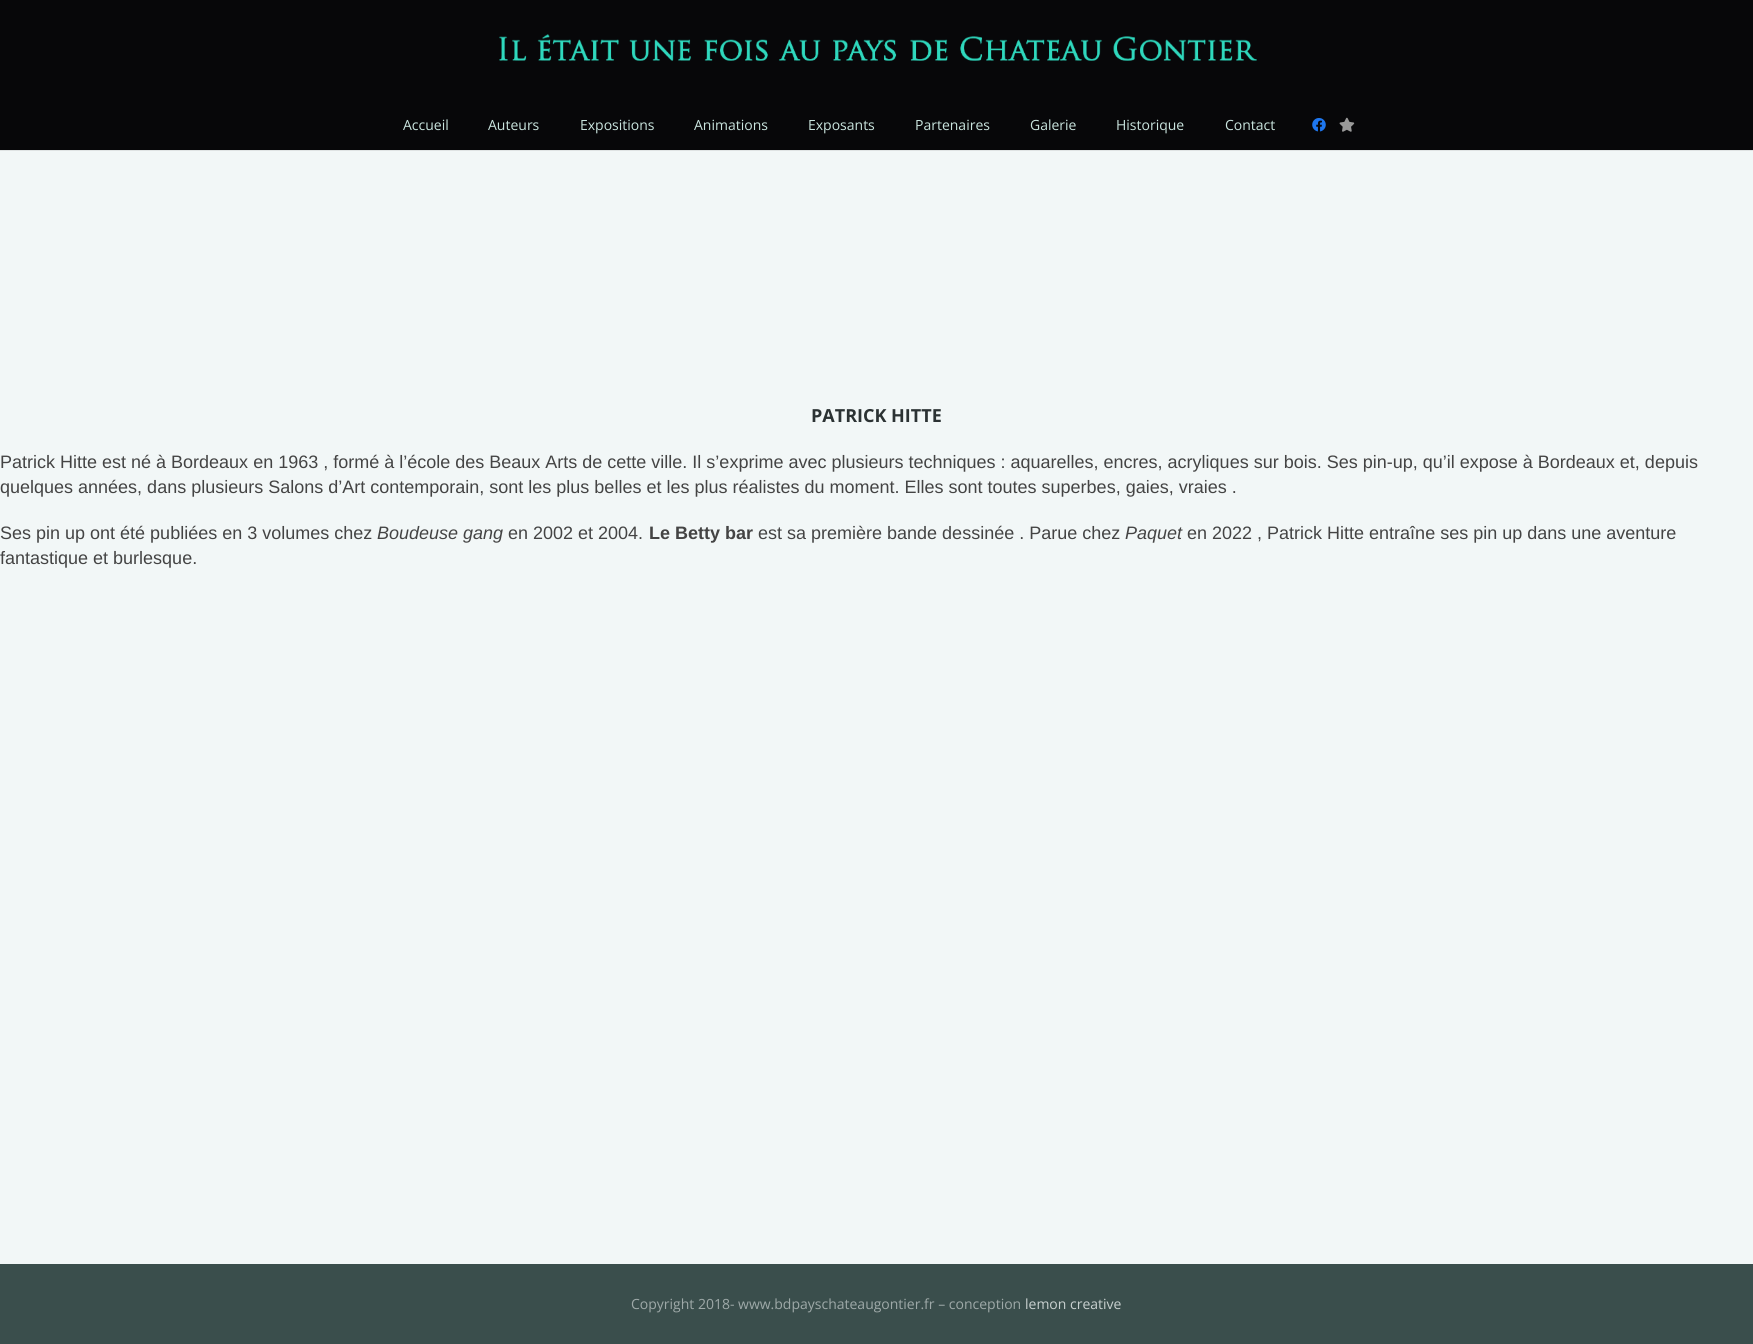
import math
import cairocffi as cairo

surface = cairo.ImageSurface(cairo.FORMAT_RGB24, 1753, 1344)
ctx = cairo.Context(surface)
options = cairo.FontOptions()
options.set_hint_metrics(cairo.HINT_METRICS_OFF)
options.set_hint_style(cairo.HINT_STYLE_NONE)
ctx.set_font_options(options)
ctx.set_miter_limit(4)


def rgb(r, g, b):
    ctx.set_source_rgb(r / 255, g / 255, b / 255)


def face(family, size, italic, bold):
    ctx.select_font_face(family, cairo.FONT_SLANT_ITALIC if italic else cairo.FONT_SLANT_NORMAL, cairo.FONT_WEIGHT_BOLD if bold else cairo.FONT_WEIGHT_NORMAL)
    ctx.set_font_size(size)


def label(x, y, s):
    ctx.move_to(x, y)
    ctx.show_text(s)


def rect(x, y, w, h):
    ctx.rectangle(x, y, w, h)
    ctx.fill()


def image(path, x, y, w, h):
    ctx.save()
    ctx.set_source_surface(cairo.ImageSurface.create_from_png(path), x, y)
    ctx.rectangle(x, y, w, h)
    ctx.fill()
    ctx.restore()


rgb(242, 247, 247)
ctx.paint()
rgb(7, 7, 9)
rect(0, 0, 1753, 150)
image('image0.png', 499, 34, 758, 27)
rgb(223, 227, 227)
rect(0, 150, 1753, 1)
face('Open Sans', 14, 0, 0)
rgb(202, 229, 223)
label(403, 130, 'Accueil')
label(488, 130, 'Auteurs')
label(580, 130, 'Expositions')
label(694, 130, 'Animations')
label(808, 130, 'Exposants')
label(915, 130, 'Partenaires')
label(1030, 130, 'Galerie')
label(1116, 130, 'Historique')
label(1225, 130, 'Contact')
image('image1.png', 1312, 118, 14, 14)
image('image2.png', 1339, 117, 16, 15)
face('Open Sans', 18, 0, 1)
rgb(43, 50, 51)
label(811, 422, 'PATRICK HITTE')
face('Liberation Sans', 18, 0, 0)
rgb(68, 68, 68)
label(0, 468, 'Patrick Hitte est né à Bordeaux en 1963 , formé à l’école des Beaux Arts de cette ville. Il s’exprime avec plusieurs techniques : aquarelles, encres, acryliques sur bois. Ses pin-up, qu’il expose à Bordeaux et, depuis')
label(0, 493, 'quelques années, dans plusieurs Salons d’Art contemporain, sont les plus belles et les plus réalistes du moment. Elles sont toutes superbes, gaies, vraies .')
label(0, 539, 'Ses pin up ont été publiées en 3 volumes chez')
face('Liberation Sans', 18, 1, 0)
label(377, 539, 'Boudeuse gang')
face('Liberation Sans', 18, 0, 0)
label(508, 539, 'en 2002 et 2004.')
face('Liberation Sans', 18, 0, 1)
label(649, 539, 'Le Betty bar')
face('Liberation Sans', 18, 0, 0)
label(758, 539, 'est sa première bande dessinée . Parue chez')
face('Liberation Sans', 18, 1, 0)
label(1125, 539, 'Paquet')
face('Liberation Sans', 18, 0, 0)
label(1187, 539, 'en 2022 , Patrick Hitte entraîne ses pin up dans une aventure')
label(0, 564, 'fantastique et burlesque.')
rgb(58, 78, 76)
rect(0, 1264, 1753, 80)
face('Open Sans', 14, 0, 0)
rgb(158, 169, 168)
label(631, 1309, 'Copyright 2018- www.bdpayschateaugontier.fr – conception')
rgb(201, 209, 208)
label(1025, 1309, 'lemon creative')
surface.write_to_png('render.png')
